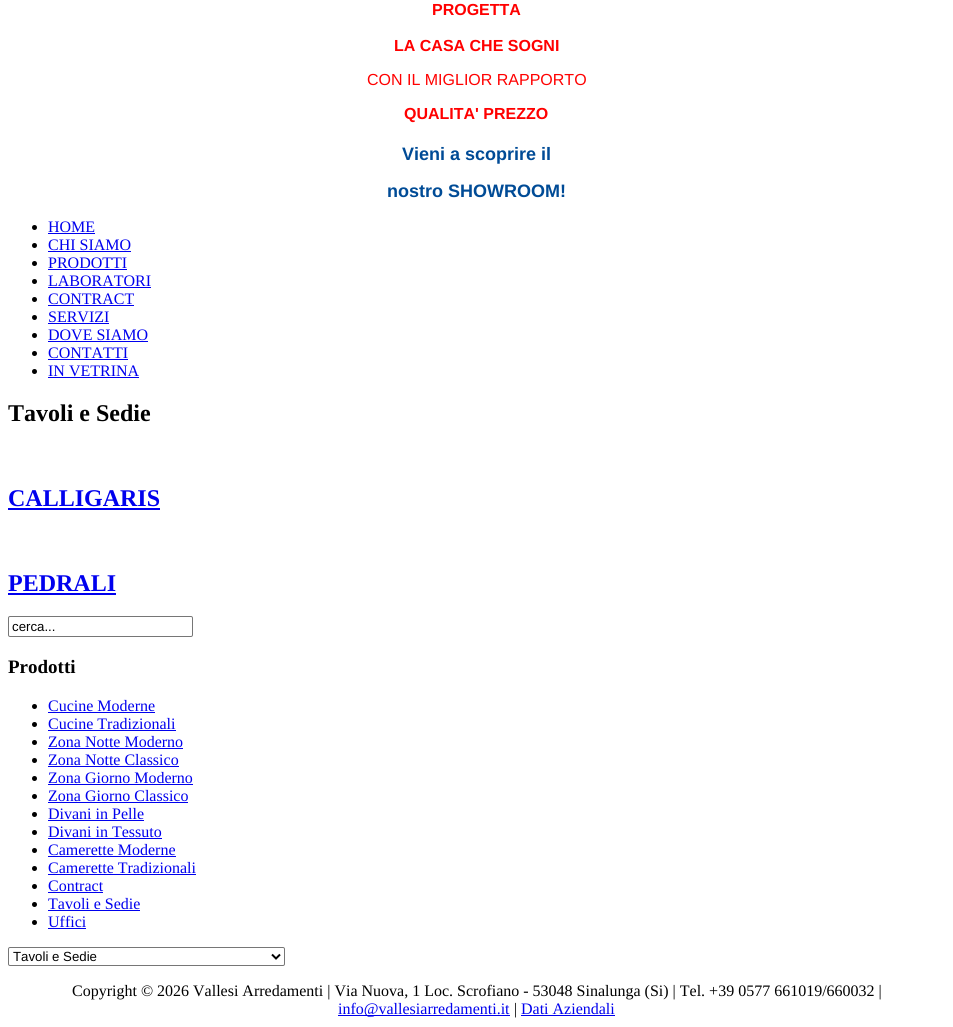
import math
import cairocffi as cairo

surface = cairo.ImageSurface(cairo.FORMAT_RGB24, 953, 1027)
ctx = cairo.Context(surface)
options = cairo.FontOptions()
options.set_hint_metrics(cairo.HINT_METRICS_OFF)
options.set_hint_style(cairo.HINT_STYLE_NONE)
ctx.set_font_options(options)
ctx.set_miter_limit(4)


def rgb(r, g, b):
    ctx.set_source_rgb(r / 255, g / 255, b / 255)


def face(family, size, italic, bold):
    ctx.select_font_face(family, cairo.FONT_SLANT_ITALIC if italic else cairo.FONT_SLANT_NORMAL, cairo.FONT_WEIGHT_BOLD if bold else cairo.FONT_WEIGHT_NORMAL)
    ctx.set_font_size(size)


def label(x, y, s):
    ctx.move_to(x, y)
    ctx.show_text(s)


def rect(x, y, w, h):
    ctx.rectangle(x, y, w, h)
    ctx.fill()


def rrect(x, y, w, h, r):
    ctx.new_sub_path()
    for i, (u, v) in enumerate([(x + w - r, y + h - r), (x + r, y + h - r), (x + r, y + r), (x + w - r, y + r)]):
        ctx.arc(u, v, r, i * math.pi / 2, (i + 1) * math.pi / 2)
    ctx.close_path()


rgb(255, 255, 255)
ctx.paint()
face('Liberation Sans', 16, 0, 1)
rgb(255, 0, 0)
label(432, 15, 'PROGETTA')
label(394, 51, 'LA CASA CHE SOGNI')
face('Liberation Sans', 16, 0, 0)
label(367, 85, 'CON IL MIGLIOR RAPPORTO')
face('Liberation Sans', 16, 0, 1)
label(404, 119, 'QUALITA\' PREZZO')
face('Liberation Sans', 18, 0, 1)
rgb(0, 75, 150)
label(402, 160, 'Vieni a scoprire il')
label(387, 197, 'nostro SHOWROOM!')
rgb(0, 0, 0)
ctx.new_path()
ctx.arc(34.5, 227.5, 2.5, 0, 2 * math.pi)
ctx.fill()
face('Liberation Serif', 16, 0, 0)
rgb(0, 0, 238)
label(48, 232, 'HOME')
rect(48, 233, 47, 1)
rgb(0, 0, 0)
ctx.new_path()
ctx.arc(34.5, 245.5, 2.5, 0, 2 * math.pi)
ctx.fill()
rgb(0, 0, 238)
label(48, 250, 'CHI SIAMO')
rect(48, 251, 83, 1)
rgb(0, 0, 0)
ctx.new_path()
ctx.arc(34.5, 263.5, 2.5, 0, 2 * math.pi)
ctx.fill()
rgb(0, 0, 238)
label(48, 268, 'PRODOTTI')
rect(48, 269, 79, 1)
rgb(0, 0, 0)
ctx.new_path()
ctx.arc(34.5, 281.5, 2.5, 0, 2 * math.pi)
ctx.fill()
rgb(0, 0, 238)
label(48, 286, 'LABORATORI')
rect(48, 287, 103, 1)
rgb(0, 0, 0)
ctx.new_path()
ctx.arc(34.5, 299.5, 2.5, 0, 2 * math.pi)
ctx.fill()
rgb(0, 0, 238)
label(48, 304, 'CONTRACT')
rect(48, 305, 86, 1)
rgb(0, 0, 0)
ctx.new_path()
ctx.arc(34.5, 317.5, 2.5, 0, 2 * math.pi)
ctx.fill()
rgb(0, 0, 238)
label(48, 322, 'SERVIZI')
rect(48, 323, 61, 1)
rgb(0, 0, 0)
ctx.new_path()
ctx.arc(34.5, 335.5, 2.5, 0, 2 * math.pi)
ctx.fill()
rgb(0, 0, 238)
label(48, 340, 'DOVE SIAMO')
rect(48, 341, 100, 1)
rgb(0, 0, 0)
ctx.new_path()
ctx.arc(34.5, 353.5, 2.5, 0, 2 * math.pi)
ctx.fill()
rgb(0, 0, 238)
label(48, 358, 'CONTATTI')
rect(48, 359, 80, 1)
rgb(0, 0, 0)
ctx.new_path()
ctx.arc(34.5, 371.5, 2.5, 0, 2 * math.pi)
ctx.fill()
rgb(0, 0, 238)
label(48, 376, 'IN VETRINA')
rect(48, 377, 91, 1)
face('Liberation Serif', 24, 0, 1)
rgb(0, 0, 0)
label(8, 421, 'Tavoli e Sedie')
rgb(0, 0, 238)
label(8, 506, 'CALLIGARIS')
rect(8, 508, 152, 2)
label(8, 591, 'PEDRALI')
rect(8, 593, 108, 2)
rrect(8.5, 616.5, 184, 20, 1.5)
rgb(118, 118, 118)
ctx.set_line_width(1)
ctx.stroke()
face('Liberation Sans', 13.25, 0, 0)
rgb(0, 0, 0)
label(12, 631, 'cerca...')
face('Liberation Serif', 19, 0, 1)
label(8, 673, 'Prodotti')
ctx.new_path()
ctx.arc(34.5, 706.5, 2.5, 0, 2 * math.pi)
ctx.fill()
face('Liberation Serif', 16, 0, 0)
rgb(0, 0, 238)
label(48, 711, 'Cucine Moderne')
rect(48, 712, 107, 1)
rgb(0, 0, 0)
ctx.new_path()
ctx.arc(34.5, 724.5, 2.5, 0, 2 * math.pi)
ctx.fill()
rgb(0, 0, 238)
label(48, 729, 'Cucine Tradizionali')
rect(48, 730, 128, 1)
rgb(0, 0, 0)
ctx.new_path()
ctx.arc(34.5, 742.5, 2.5, 0, 2 * math.pi)
ctx.fill()
rgb(0, 0, 238)
label(48, 747, 'Zona Notte Moderno')
rect(48, 748, 135, 1)
rgb(0, 0, 0)
ctx.new_path()
ctx.arc(34.5, 760.5, 2.5, 0, 2 * math.pi)
ctx.fill()
rgb(0, 0, 238)
label(48, 765, 'Zona Notte Classico')
rect(48, 766, 131, 1)
rgb(0, 0, 0)
ctx.new_path()
ctx.arc(34.5, 778.5, 2.5, 0, 2 * math.pi)
ctx.fill()
rgb(0, 0, 238)
label(48, 783, 'Zona Giorno Moderno')
rect(48, 784, 145, 1)
rgb(0, 0, 0)
ctx.new_path()
ctx.arc(34.5, 796.5, 2.5, 0, 2 * math.pi)
ctx.fill()
rgb(0, 0, 238)
label(48, 801, 'Zona Giorno Classico')
rect(48, 802, 140, 1)
rgb(0, 0, 0)
ctx.new_path()
ctx.arc(34.5, 814.5, 2.5, 0, 2 * math.pi)
ctx.fill()
rgb(0, 0, 238)
label(48, 819, 'Divani in Pelle')
rect(48, 820, 96, 1)
rgb(0, 0, 0)
ctx.new_path()
ctx.arc(34.5, 832.5, 2.5, 0, 2 * math.pi)
ctx.fill()
rgb(0, 0, 238)
label(48, 837, 'Divani in Tessuto')
rect(48, 838, 114, 1)
rgb(0, 0, 0)
ctx.new_path()
ctx.arc(34.5, 850.5, 2.5, 0, 2 * math.pi)
ctx.fill()
rgb(0, 0, 238)
label(48, 855, 'Camerette Moderne')
rect(48, 856, 128, 1)
rgb(0, 0, 0)
ctx.new_path()
ctx.arc(34.5, 868.5, 2.5, 0, 2 * math.pi)
ctx.fill()
rgb(0, 0, 238)
label(48, 873, 'Camerette Tradizionali')
rect(48, 874, 148, 1)
rgb(0, 0, 0)
ctx.new_path()
ctx.arc(34.5, 886.5, 2.5, 0, 2 * math.pi)
ctx.fill()
rgb(0, 0, 238)
label(48, 891, 'Contract')
rect(48, 892, 55, 1)
rgb(0, 0, 0)
ctx.new_path()
ctx.arc(34.5, 904.5, 2.5, 0, 2 * math.pi)
ctx.fill()
rgb(0, 0, 238)
label(48, 909, 'Tavoli e Sedie')
rect(48, 910, 92, 1)
rgb(0, 0, 0)
ctx.new_path()
ctx.arc(34.5, 922.5, 2.5, 0, 2 * math.pi)
ctx.fill()
rgb(0, 0, 238)
label(48, 927, 'Uffici')
rect(48, 928, 38, 1)
rrect(8.5, 947.5, 276, 18, 1.5)
rgb(118, 118, 118)
ctx.stroke()
ctx.new_path()
ctx.move_to(272, 954.5)
ctx.line_to(276, 958.5)
ctx.line_to(280, 954.5)
rgb(0, 0, 0)
ctx.set_line_width(2)
ctx.stroke()
face('Liberation Sans', 13.25, 0, 0)
label(13, 961, 'Tavoli e Sedie')
face('Liberation Serif', 16, 0, 0)
label(72, 996, 'Copyright © 2026 Vallesi Arredamenti | Via Nuova, 1 Loc. Scrofiano - 53048 Sinalunga (Si) | Tel. +39 0577 661019/660032 |')
rgb(0, 0, 238)
rect(338, 1015, 172, 1)
label(338, 1014, 'info@vallesiarredamenti.it')
rgb(0, 0, 0)
label(514, 1014, '|')
rgb(0, 0, 238)
label(521, 1014, 'Dati Aziendali')
rect(521, 1015, 94, 1)
surface.write_to_png('render.png')
